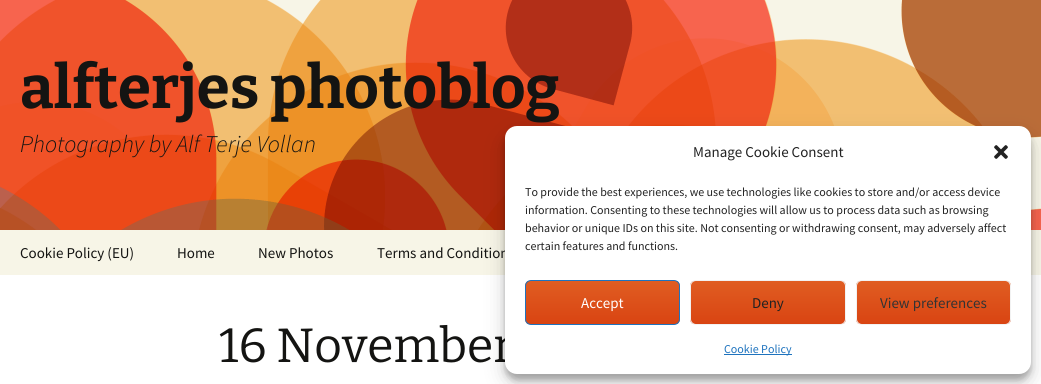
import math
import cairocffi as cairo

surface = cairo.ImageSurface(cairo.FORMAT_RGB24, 1041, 384)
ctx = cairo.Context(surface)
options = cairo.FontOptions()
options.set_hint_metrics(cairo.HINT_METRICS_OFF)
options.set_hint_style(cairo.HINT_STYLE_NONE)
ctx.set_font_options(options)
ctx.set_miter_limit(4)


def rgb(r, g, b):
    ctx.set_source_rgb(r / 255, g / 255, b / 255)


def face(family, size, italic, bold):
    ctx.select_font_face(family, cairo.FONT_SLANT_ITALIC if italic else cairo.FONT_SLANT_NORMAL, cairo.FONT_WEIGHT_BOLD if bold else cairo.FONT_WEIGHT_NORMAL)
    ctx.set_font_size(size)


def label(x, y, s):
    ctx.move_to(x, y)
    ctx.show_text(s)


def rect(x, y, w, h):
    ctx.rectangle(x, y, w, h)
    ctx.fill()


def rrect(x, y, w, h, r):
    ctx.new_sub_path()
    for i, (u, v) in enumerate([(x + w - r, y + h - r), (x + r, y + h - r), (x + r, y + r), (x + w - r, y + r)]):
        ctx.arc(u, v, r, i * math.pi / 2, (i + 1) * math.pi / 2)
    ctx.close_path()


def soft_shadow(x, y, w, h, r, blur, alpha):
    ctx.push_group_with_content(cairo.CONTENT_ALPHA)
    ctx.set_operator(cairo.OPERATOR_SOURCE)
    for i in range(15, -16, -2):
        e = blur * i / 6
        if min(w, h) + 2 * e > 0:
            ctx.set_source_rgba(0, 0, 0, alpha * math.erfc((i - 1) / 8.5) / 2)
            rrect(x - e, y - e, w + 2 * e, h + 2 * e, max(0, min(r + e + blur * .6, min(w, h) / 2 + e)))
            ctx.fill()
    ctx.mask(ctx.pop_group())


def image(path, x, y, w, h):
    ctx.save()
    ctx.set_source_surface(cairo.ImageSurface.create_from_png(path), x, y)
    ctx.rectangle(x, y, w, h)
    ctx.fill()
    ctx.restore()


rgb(255, 255, 255)
ctx.paint()
image('image0.png', 0, 0, 1041, 230)
face('Bitter Thin', 60, 0, 0)
rgb(20, 20, 18)
label(20, 108, 'alfterjes photoblog')
face('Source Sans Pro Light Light', 24, 1, 0)
label(20, 152, 'Photography by Alf Terje Vollan')
rgb(247, 245, 231)
rect(0, 230, 1041, 45)
face('Source Sans Pro', 15, 0, 0)
rgb(20, 20, 18)
label(20, 258, 'Cookie Policy (EU)')
label(177, 258, 'Home')
label(258, 258, 'New Photos')
label(377, 258, 'Terms and Condition')
face('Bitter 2 Thin', 48, 0, 0)
label(219, 362, '16 November')
rgb(0, 0, 0)
soft_shadow(505, 132, 526, 248, 12, 3, 0.23)
soft_shadow(505, 136, 526, 248, 12, 10, 0.19)
rgb(255, 255, 255)
rrect(505, 126, 526, 248, 12)
ctx.fill()
face('Source Sans Pro', 15, 0, 0)
rgb(34, 34, 34)
label(693, 157, 'Manage Cookie Consent')
image('image1.png', 994, 145, 14, 14)
face('Source Sans Pro', 12, 0, 0)
label(525, 196, 'To provide the best experiences, we use technologies like cookies to store and/or access device')
label(525, 214, 'information. Consenting to these technologies will allow us to process data such as browsing')
label(525, 232, 'behavior or unique IDs on this site. Not consenting or withdrawing consent, may adversely affect')
label(525, 250, 'certain features and functions.')
ctx.save()
rrect(525, 280, 155, 45, 6)
ctx.clip()
gradient = cairo.LinearGradient(603, 281, 603, 324)
gradient.add_color_stop_rgba(0, 0.878, 0.365, 0.133, 1)
gradient.add_color_stop_rgba(1, 0.851, 0.267, 0.071, 1)
ctx.set_source(gradient)
rect(525, 281, 155, 43)
ctx.restore()
rrect(525.5, 280.5, 154, 44, 5.5)
rgb(30, 115, 190)
ctx.set_line_width(1)
ctx.stroke()
face('Source Sans Pro', 15, 0, 0)
rgb(255, 255, 255)
label(581, 308, 'Accept')
ctx.save()
rrect(690, 280, 156, 45, 6)
ctx.clip()
gradient = cairo.LinearGradient(768, 281, 768, 324)
gradient.add_color_stop_rgba(0, 0.878, 0.365, 0.133, 1)
gradient.add_color_stop_rgba(1, 0.851, 0.267, 0.071, 1)
ctx.set_source(gradient)
rect(690, 281, 156, 43)
ctx.restore()
rrect(690.5, 280.5, 155, 44, 5.5)
rgb(242, 242, 242)
ctx.stroke()
rgb(34, 34, 34)
label(752, 308, 'Deny')
ctx.save()
rrect(856, 280, 155, 45, 6)
ctx.clip()
gradient = cairo.LinearGradient(934, 281, 934, 324)
gradient.add_color_stop_rgba(0, 0.878, 0.365, 0.133, 1)
gradient.add_color_stop_rgba(1, 0.851, 0.267, 0.071, 1)
ctx.set_source(gradient)
rect(856, 281, 155, 43)
ctx.restore()
rrect(856.5, 280.5, 154, 44, 5.5)
rgb(242, 242, 242)
ctx.stroke()
rgb(51, 51, 51)
label(880, 308, 'View preferences')
rgb(30, 115, 190)
rect(724, 354, 68, 1)
face('Source Sans Pro', 12, 0, 0)
label(724, 353, 'Cookie Policy')
surface.write_to_png('render.png')
